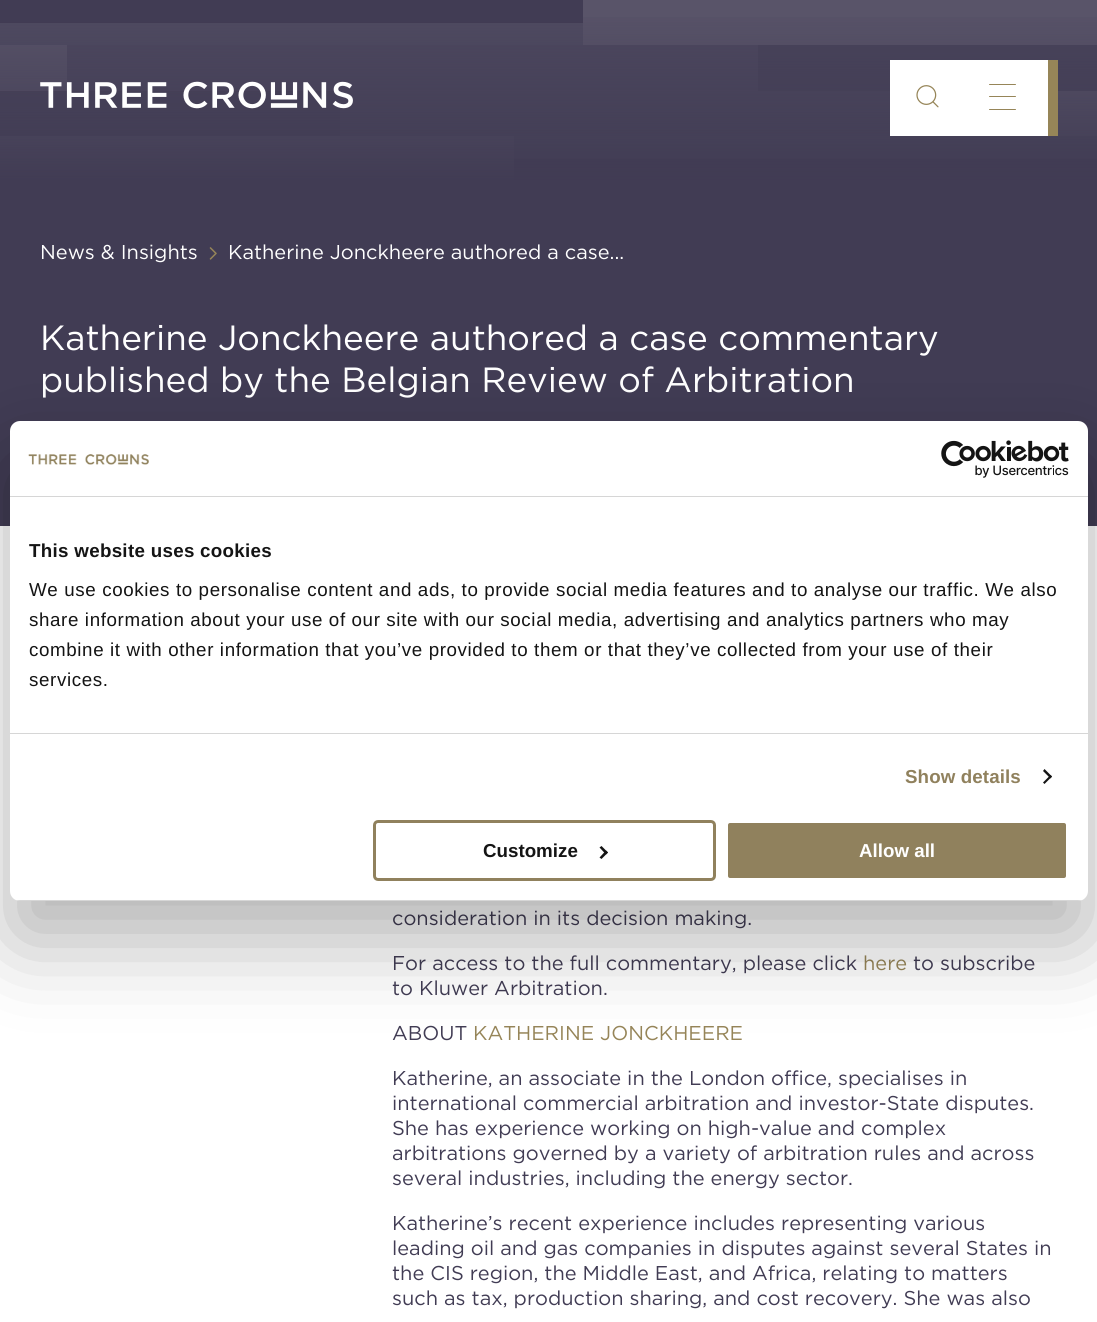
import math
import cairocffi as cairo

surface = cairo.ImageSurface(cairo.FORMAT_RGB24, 1097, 1322)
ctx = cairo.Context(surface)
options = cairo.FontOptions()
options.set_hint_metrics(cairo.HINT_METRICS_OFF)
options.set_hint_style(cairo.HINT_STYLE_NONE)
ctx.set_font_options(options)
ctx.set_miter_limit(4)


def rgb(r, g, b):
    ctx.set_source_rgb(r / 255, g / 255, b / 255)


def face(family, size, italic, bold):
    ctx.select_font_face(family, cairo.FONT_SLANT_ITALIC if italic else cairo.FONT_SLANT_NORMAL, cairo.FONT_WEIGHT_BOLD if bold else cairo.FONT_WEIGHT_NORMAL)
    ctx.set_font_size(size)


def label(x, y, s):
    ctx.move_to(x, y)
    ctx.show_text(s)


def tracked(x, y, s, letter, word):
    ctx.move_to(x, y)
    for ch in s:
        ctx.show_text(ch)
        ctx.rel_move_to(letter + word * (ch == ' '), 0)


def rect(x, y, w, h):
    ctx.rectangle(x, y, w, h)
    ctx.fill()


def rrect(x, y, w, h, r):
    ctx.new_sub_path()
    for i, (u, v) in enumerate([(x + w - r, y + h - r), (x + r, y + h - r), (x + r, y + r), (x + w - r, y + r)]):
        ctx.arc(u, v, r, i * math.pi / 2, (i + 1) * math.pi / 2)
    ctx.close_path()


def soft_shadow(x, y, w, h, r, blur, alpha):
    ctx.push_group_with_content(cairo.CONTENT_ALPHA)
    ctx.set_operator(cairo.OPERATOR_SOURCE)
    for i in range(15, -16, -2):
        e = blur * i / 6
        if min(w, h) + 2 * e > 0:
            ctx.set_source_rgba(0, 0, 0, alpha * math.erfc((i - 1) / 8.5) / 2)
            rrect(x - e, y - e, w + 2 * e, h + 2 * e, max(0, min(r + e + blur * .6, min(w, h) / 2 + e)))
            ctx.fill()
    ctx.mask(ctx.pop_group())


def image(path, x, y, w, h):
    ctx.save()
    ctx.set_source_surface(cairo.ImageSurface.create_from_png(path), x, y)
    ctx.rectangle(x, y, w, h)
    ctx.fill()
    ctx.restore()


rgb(255, 255, 255)
ctx.paint()
rgb(65, 60, 84)
rect(0, 0, 1097, 526)
rgb(77, 72, 95)
rect(67, 45, 691, 46)
rgb(89, 84, 105)
rect(0, 45, 67, 46)
rgb(72, 67, 90)
rect(0, 91, 340, 45)
rgb(77, 72, 95)
rect(340, 91, 550, 45)
rgb(72, 67, 90)
rect(758, 45, 339, 46)
rgb(89, 84, 105)
rect(583, 0, 514, 45)
rgb(79, 75, 97)
rect(0, 23, 583, 22)
rgb(89, 84, 105)
rect(0, 136, 514, 44)
rect(1058, 91, 39, 45)
rgb(79, 75, 97)
rect(514, 136, 583, 23)
gradient = cairo.LinearGradient(549, 0, 549, 181)
gradient.add_color_stop_rgba(0, 0.255, 0.235, 0.329, 0)
gradient.add_color_stop_rgba(1, 0.255, 0.235, 0.329, 1)
ctx.set_source(gradient)
rect(0, 17, 1097, 163)
image('image0.png', 40, 81, 313, 28)
rgb(255, 255, 255)
rect(890, 60, 158, 76)
rgb(150, 133, 88)
rect(1048, 60, 10, 76)
image('image1.png', 916, 85, 23, 23)
rrect(989, 96, 27, 1, 0.5)
ctx.fill()
rrect(989, 84, 27, 1, 0.5)
ctx.fill()
rrect(989, 109, 27, 1, 0.5)
ctx.fill()
face('gotham', 20, 0, 0)
rgb(255, 255, 255)
label(40, 259, 'News & Insights')
image('image2.png', 209, 247, 8, 13)
label(228, 259, 'Katherine Jonckheere authored a case...')
face('gotham', 35, 0, 0)
label(40, 350, 'Katherine Jonckheere authored a case commentary')
label(40, 392, 'published by the Belgian Review of Arbitration')
face('gotham', 20, 0, 0)
rgb(65, 60, 84)
label(392, 925, 'consideration in its decision making.')
label(392, 970, 'For access to the full commentary, please click')
rgb(150, 133, 88)
label(863, 970, 'here')
rgb(65, 60, 84)
label(913, 970, 'to subscribe')
label(392, 995, 'to Kluwer Arbitration.')
label(392, 1040, 'ABOUT')
rgb(150, 133, 88)
label(473, 1040, 'KATHERINE JONCKHEERE')
rgb(65, 60, 84)
label(392, 1085, 'Katherine, an associate in the London office, specialises in')
label(392, 1110, 'international commercial arbitration and investor-State disputes.')
label(392, 1135, 'She has experience working on high-value and complex')
label(392, 1160, 'arbitrations governed by a variety of arbitration rules and across')
label(392, 1185, 'several industries, including the energy sector.')
label(392, 1230, 'Katherine’s recent experience includes representing various')
label(392, 1255, 'leading oil and gas companies in disputes against several States in')
label(392, 1280, 'the CIS region, the Middle East, and Africa, relating to matters')
label(392, 1305, 'such as tax, production sharing, and cost recovery. She was also')
rgb(0, 0, 0)
soft_shadow(10, 461, 1078, 480, 10, 42.5, 0.3)
rgb(255, 255, 255)
rrect(10, 421, 1078, 480, 10)
ctx.fill()
rgb(214, 214, 214)
rect(10, 496, 1078, 1)
image('image3.png', 28, 454, 121, 11)
image('image4.png', 941, 440, 128, 38)
rect(10, 733, 1078, 1)
face('Liberation Sans', 18.75, 0, 1)
rgb(20, 20, 20)
tracked(29, 557, 'This website uses cookies', 0.3, 0)
face('Liberation Sans', 18.75, 0, 0)
tracked(29, 596, 'We use cookies to personalise content and ads, to provide social media features and to analyse our traffic. We also', 0.62, 0)
tracked(29, 626, 'share information about your use of our site with our social media, advertising and analytics partners who may', 0.62, 0)
tracked(29, 656, 'combine it with other information that you’ve provided to them or that they’ve collected from your use of their', 0.62, 0)
tracked(29, 686, 'services.', 0.62, 0)
face('Liberation Sans', 18.75, 0, 1)
rgb(144, 129, 93)
tracked(905, 783, 'Show details', 0.1, 0)
rgb(20, 20, 20)
ctx.new_path()
ctx.move_to(1044.5, 769)
ctx.line_to(1052, 776.5)
ctx.line_to(1050.5, 778.5)
ctx.line_to(1043, 771)
ctx.close_path()
ctx.fill()
ctx.new_path()
ctx.move_to(1050.5, 775)
ctx.line_to(1052, 776.5)
ctx.line_to(1044.5, 784)
ctx.line_to(1043, 782.5)
ctx.close_path()
ctx.fill()
ctx.save()
rrect(10, 421, 1078, 480, 10)
ctx.clip()
rgb(214, 214, 214)
rect(10, 900, 1078, 1)
ctx.restore()
rrect(374.5, 821.5, 340, 58, 3.5)
rgb(144, 129, 93)
ctx.set_line_width(3)
ctx.stroke()
rgb(20, 20, 20)
label(483, 857, 'Customize')
ctx.new_path()
ctx.move_to(601.5, 846)
ctx.line_to(608, 852.5)
ctx.line_to(606, 854.5)
ctx.line_to(599.5, 847.5)
ctx.close_path()
ctx.fill()
ctx.new_path()
ctx.move_to(606, 850.5)
ctx.line_to(608, 852.5)
ctx.line_to(601.5, 859)
ctx.line_to(599.5, 857.5)
ctx.close_path()
ctx.fill()
rgb(144, 129, 93)
rrect(726.5, 821.5, 341, 58, 3.5)
ctx.fill_preserve()
rgb(255, 255, 255)
ctx.stroke()
label(859, 857, 'Allow all')
surface.write_to_png('render.png')
